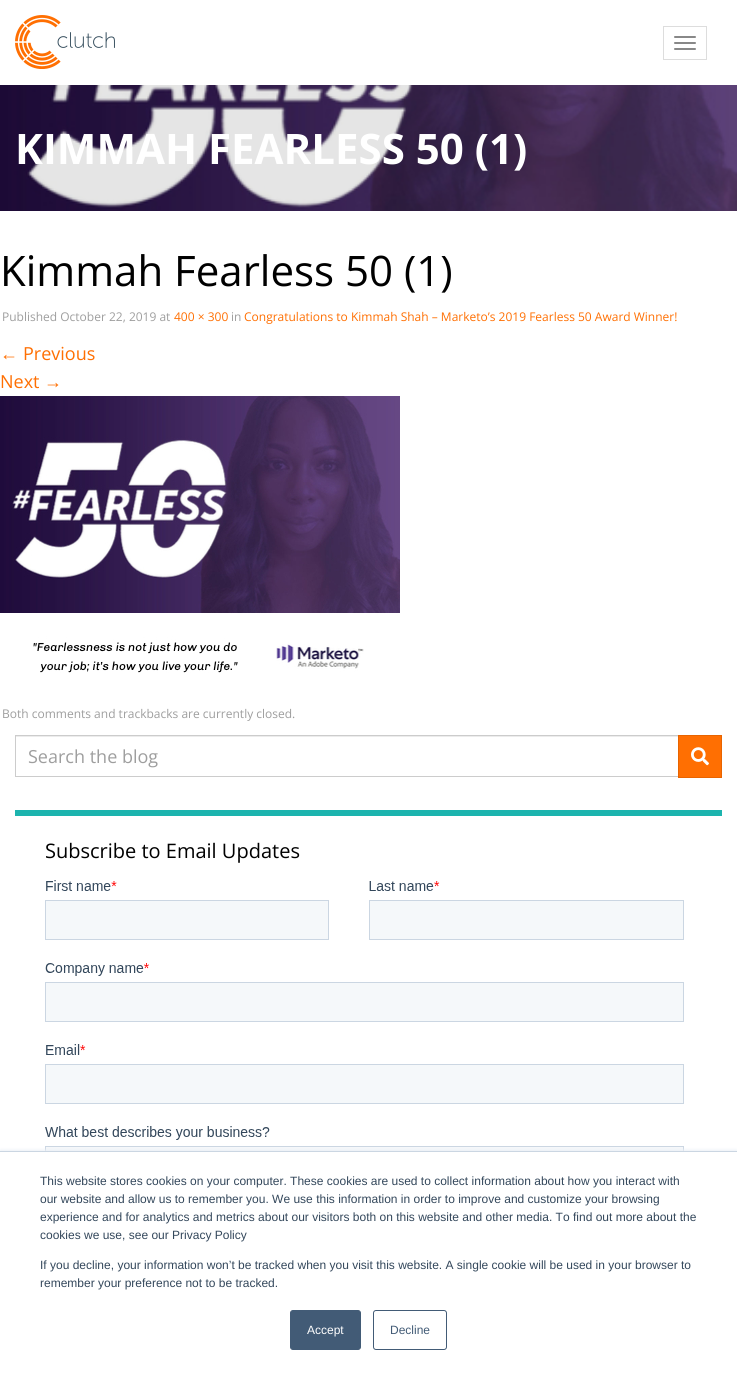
import math
import cairocffi as cairo

surface = cairo.ImageSurface(cairo.FORMAT_RGB24, 737, 1376)
ctx = cairo.Context(surface)
options = cairo.FontOptions()
options.set_hint_metrics(cairo.HINT_METRICS_OFF)
options.set_hint_style(cairo.HINT_STYLE_NONE)
ctx.set_font_options(options)
ctx.set_miter_limit(4)


def rgb(r, g, b):
    ctx.set_source_rgb(r / 255, g / 255, b / 255)


def face(family, size, italic, bold):
    ctx.select_font_face(family, cairo.FONT_SLANT_ITALIC if italic else cairo.FONT_SLANT_NORMAL, cairo.FONT_WEIGHT_BOLD if bold else cairo.FONT_WEIGHT_NORMAL)
    ctx.set_font_size(size)


def label(x, y, s):
    ctx.move_to(x, y)
    ctx.show_text(s)


def rect(x, y, w, h):
    ctx.rectangle(x, y, w, h)
    ctx.fill()


def rrect(x, y, w, h, r):
    ctx.new_sub_path()
    for i, (u, v) in enumerate([(x + w - r, y + h - r), (x + r, y + h - r), (x + r, y + r), (x + w - r, y + r)]):
        ctx.arc(u, v, r, i * math.pi / 2, (i + 1) * math.pi / 2)
    ctx.close_path()


def soft_shadow(x, y, w, h, r, blur, alpha):
    ctx.push_group_with_content(cairo.CONTENT_ALPHA)
    ctx.set_operator(cairo.OPERATOR_SOURCE)
    for i in range(15, -16, -2):
        e = blur * i / 6
        if min(w, h) + 2 * e > 0:
            ctx.set_source_rgba(0, 0, 0, alpha * math.erfc((i - 1) / 8.5) / 2)
            rrect(x - e, y - e, w + 2 * e, h + 2 * e, max(0, min(r + e + blur * .6, min(w, h) / 2 + e)))
            ctx.fill()
    ctx.mask(ctx.pop_group())


def image(path, x, y, w, h):
    ctx.save()
    ctx.set_source_surface(cairo.ImageSurface.create_from_png(path), x, y)
    ctx.rectangle(x, y, w, h)
    ctx.fill()
    ctx.restore()


rgb(255, 255, 255)
ctx.paint()
image('image0.png', 15, 15, 100, 54)
ctx.rectangle(663.5, 26.5, 43, 33)
rgb(221, 221, 221)
ctx.set_line_width(1)
ctx.stroke()
rgb(136, 136, 136)
rrect(674, 36, 22, 2, 1)
ctx.fill()
rrect(674, 42, 22, 2, 1)
ctx.fill()
rrect(674, 48, 22, 2, 1)
ctx.fill()
image('image1.png', 0, 85, 737, 126)
face('Open Sans', 42, 0, 1)
rgb(255, 255, 255)
label(15, 164, 'KIMMAH FEARLESS 50 (1)')
face('Open Sans', 42, 0, 0)
rgb(0, 0, 0)
label(0, 286, 'Kimmah Fearless 50 (1)')
face('Open Sans', 12, 0, 0)
rgb(158, 158, 158)
label(2, 321, 'Published October 22, 2019 at')
rgb(255, 111, 2)
label(174, 321, '400 × 300')
rgb(158, 158, 158)
label(231, 321, 'in')
rgb(255, 111, 2)
label(244, 321, 'Congratulations to Kimmah Shah – Marketo’s 2019 Fearless 50 Award Winner!')
face('Liberation Sans', 18, 0, 0)
label(0, 360, '←')
face('Open Sans', 18, 0, 0)
label(23, 360, 'Previous')
label(0, 388, 'Next')
face('Liberation Sans', 18, 0, 0)
label(44, 388, '→')
image('image2.png', 0, 396, 400, 277)
face('Open Sans', 12, 0, 0)
rgb(158, 158, 158)
label(2, 718, 'Both comments and trackbacks are currently closed.')
rgb(236, 236, 236)
rect(16, 736, 662, 1)
ctx.rectangle(15.5, 735.5, 663, 41)
rgb(204, 204, 204)
ctx.stroke()
face('Open Sans', 18, 0, 0)
rgb(158, 158, 158)
label(28, 763, 'Search the blog')
rgb(255, 111, 2)
ctx.rectangle(678.5, 735.5, 43, 42)
ctx.fill_preserve()
rgb(232, 100, 0)
ctx.stroke()
image('image3.png', 691, 747, 18, 19)
rgb(28, 180, 174)
rect(15, 810, 707, 6)
face('Open Sans', 20, 0, 0)
rgb(0, 0, 0)
label(45, 858, 'Subscribe to Email Updates')
image('image4.png', 45, 880, 639, 271)
rgb(234, 240, 246)
soft_shadow(0, 1150, 737, 225, 0, 1.5, 1)
rgb(255, 255, 255)
rect(0, 1152, 737, 224)
rgb(203, 214, 226)
rect(0, 1151, 737, 1)
face('Liberation Sans', 12, 0, 0)
rgb(51, 71, 91)
label(40, 1185, 'This website stores cookies on your computer. These cookies are used to collect information about how you interact with')
label(40, 1203, 'our website and allow us to remember you. We use this information in order to improve and customize your browsing')
label(40, 1221, 'experience and for analytics and metrics about our visitors both on this website and other media. To find out more about the')
label(40, 1239, 'cookies we use, see our Privacy Policy')
label(40, 1269, 'If you decline, your information won’t be tracked when you visit this website. A single cookie will be used in your browser to')
label(40, 1287, 'remember your preference not to be tracked.')
rgb(66, 91, 118)
rrect(290.5, 1310.5, 70, 39, 2.5)
ctx.fill_preserve()
ctx.stroke()
rgb(255, 255, 255)
label(307, 1334, 'Accept')
rrect(373.5, 1310.5, 73, 39, 2.5)
rgb(66, 91, 118)
ctx.stroke()
label(390, 1334, 'Decline')
surface.write_to_png('render.png')
